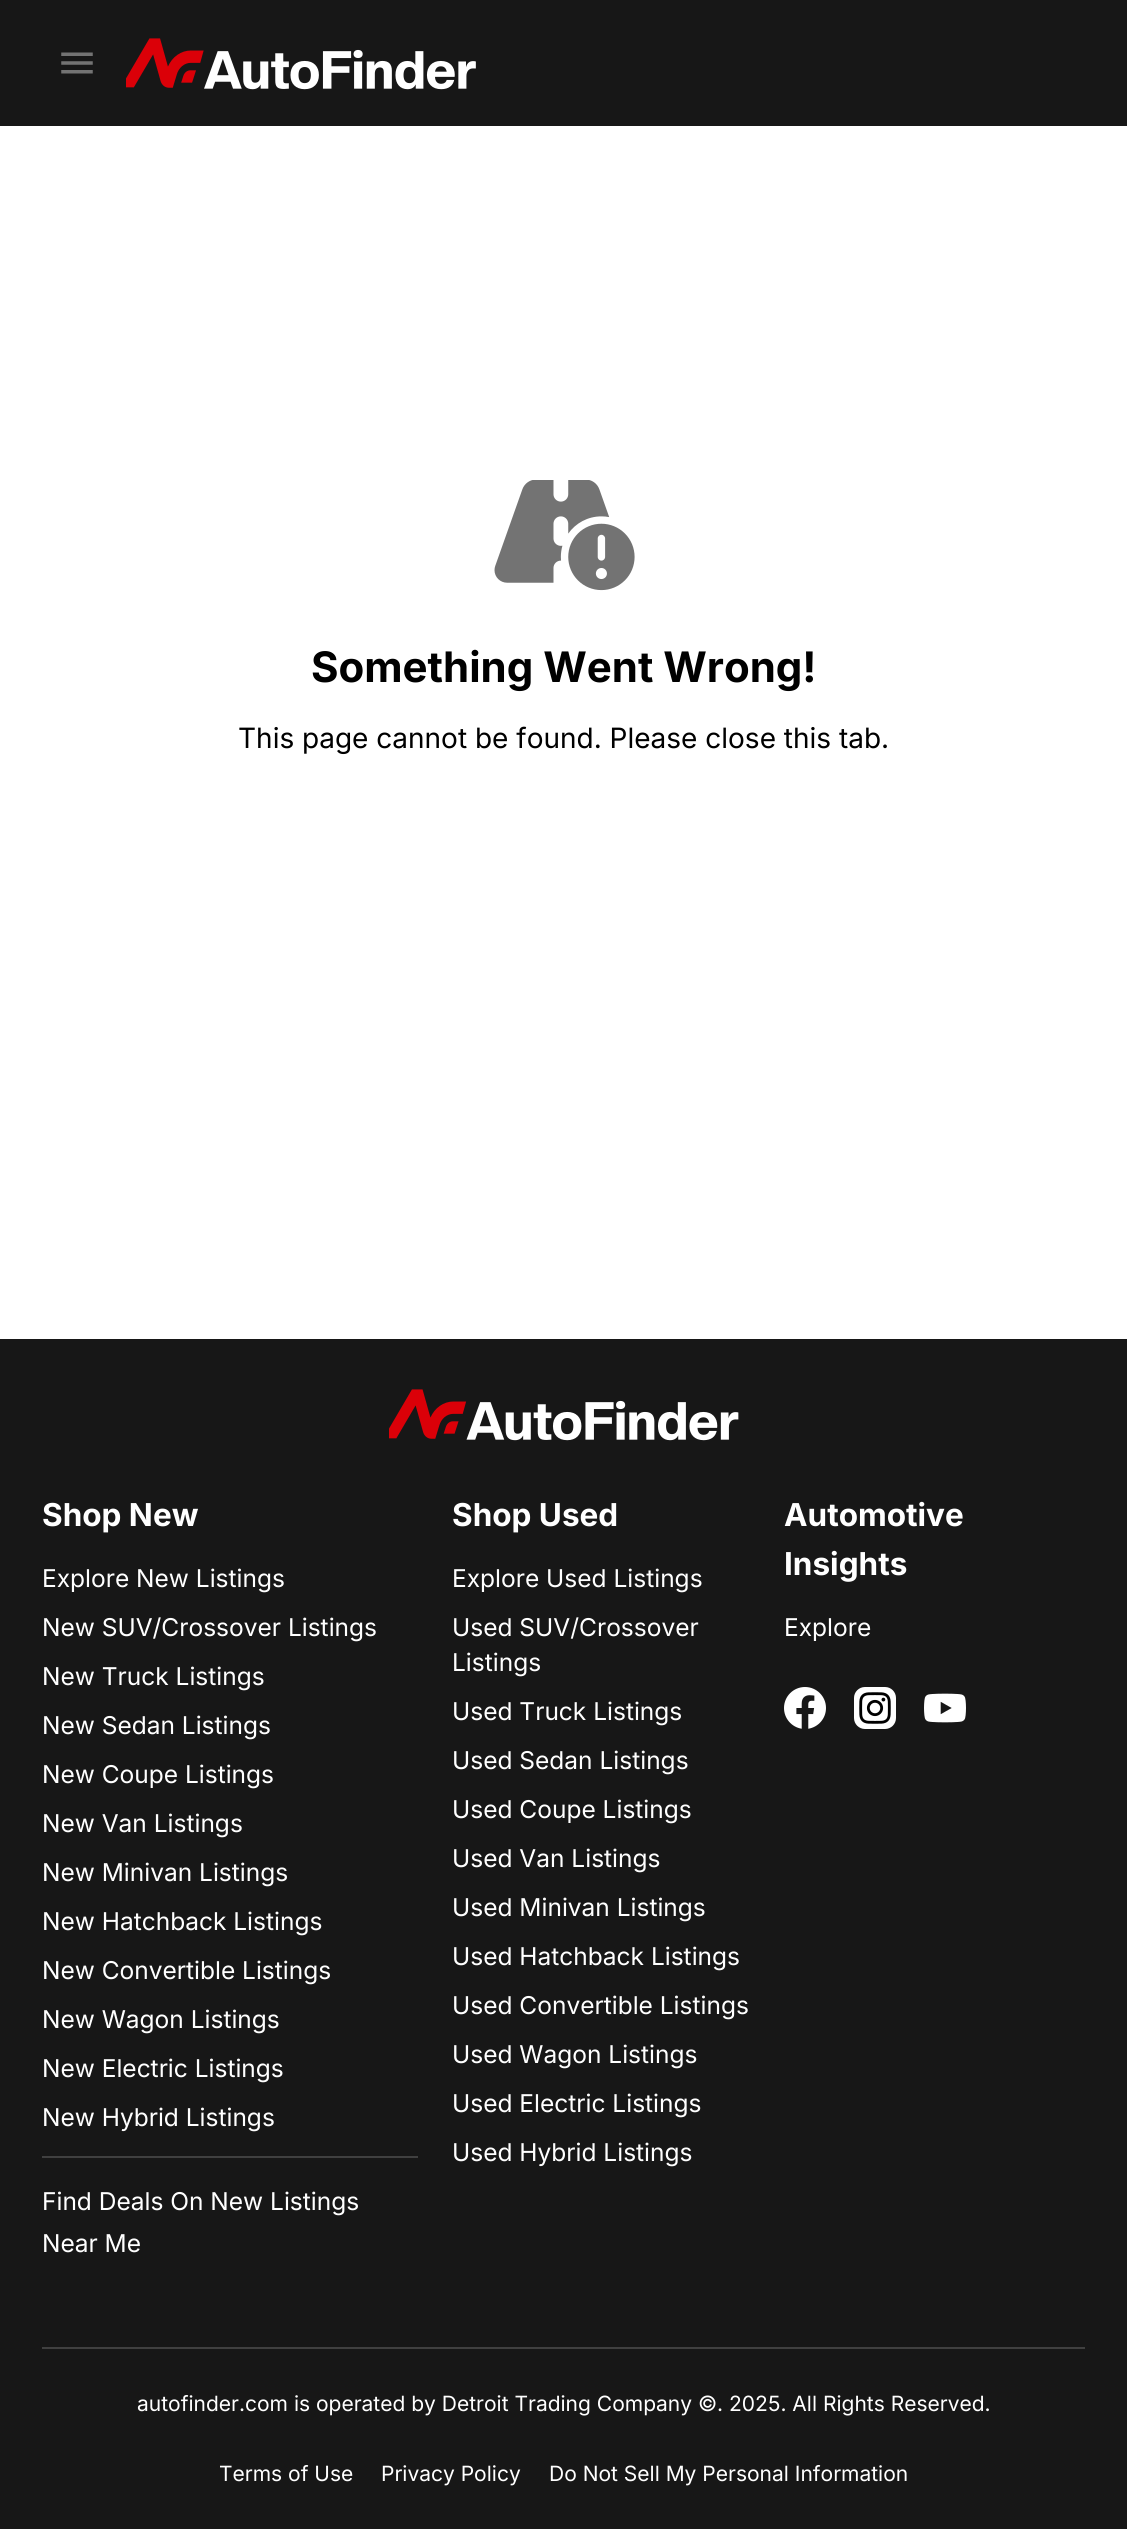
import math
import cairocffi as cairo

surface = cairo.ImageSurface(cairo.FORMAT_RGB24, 1127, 2529)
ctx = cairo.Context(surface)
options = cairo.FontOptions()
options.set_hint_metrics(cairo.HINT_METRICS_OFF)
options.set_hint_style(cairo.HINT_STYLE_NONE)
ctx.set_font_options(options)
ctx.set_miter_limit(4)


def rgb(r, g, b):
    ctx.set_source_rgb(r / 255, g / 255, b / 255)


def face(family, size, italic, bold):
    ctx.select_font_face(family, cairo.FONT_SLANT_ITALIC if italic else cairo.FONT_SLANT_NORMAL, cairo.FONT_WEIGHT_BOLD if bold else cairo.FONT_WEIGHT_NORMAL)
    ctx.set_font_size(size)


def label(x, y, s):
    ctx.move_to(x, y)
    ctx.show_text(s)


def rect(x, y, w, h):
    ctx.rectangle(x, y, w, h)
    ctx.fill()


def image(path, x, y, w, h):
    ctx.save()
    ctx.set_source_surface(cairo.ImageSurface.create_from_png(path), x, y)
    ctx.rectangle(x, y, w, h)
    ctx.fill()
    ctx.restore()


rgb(255, 255, 255)
ctx.paint()
rgb(23, 23, 23)
rect(0, 0, 1127, 126)
image('image0.png', 61, 52, 32, 22)
image('image1.png', 126, 38, 350, 52)
image('image2.png', 494, 480, 141, 111)
face('Inter', 42, 0, 1)
rgb(0, 0, 0)
label(311, 682, 'Something Went Wrong!')
face('Inter', 28, 0, 0)
label(238, 748, 'This page cannot be found. Please close this tab.')
rgb(23, 23, 23)
rect(0, 1339, 1127, 1190)
image('image3.png', 389, 1389, 350, 52)
rgb(64, 64, 64)
rect(42, 2347, 1043, 2)
face('Inter', 31.5, 0, 1)
rgb(255, 255, 255)
label(42, 1526, 'Shop New')
face('Inter', 24.5, 0, 0)
label(42, 1587, 'Explore New Listings')
label(42, 1636, 'New SUV/Crossover Listings')
label(42, 1685, 'New Truck Listings')
label(42, 1734, 'New Sedan Listings')
label(42, 1783, 'New Coupe Listings')
label(42, 1832, 'New Van Listings')
label(42, 1881, 'New Minivan Listings')
label(42, 1930, 'New Hatchback Listings')
label(42, 1979, 'New Convertible Listings')
label(42, 2028, 'New Wagon Listings')
label(42, 2077, 'New Electric Listings')
label(42, 2126, 'New Hybrid Listings')
rgb(64, 64, 64)
rect(42, 2156, 376, 2)
rgb(255, 255, 255)
label(42, 2210, 'Find Deals On New Listings')
label(42, 2252, 'Near Me')
face('Inter', 31.5, 0, 1)
label(452, 1526, 'Shop Used')
face('Inter', 24.5, 0, 0)
label(452, 1587, 'Explore Used Listings')
label(452, 1636, 'Used SUV/Crossover')
label(452, 1671, 'Listings')
label(452, 1720, 'Used Truck Listings')
label(452, 1769, 'Used Sedan Listings')
label(452, 1818, 'Used Coupe Listings')
label(452, 1867, 'Used Van Listings')
label(452, 1916, 'Used Minivan Listings')
label(452, 1965, 'Used Hatchback Listings')
label(452, 2014, 'Used Convertible Listings')
label(452, 2063, 'Used Wagon Listings')
label(452, 2112, 'Used Electric Listings')
label(452, 2161, 'Used Hybrid Listings')
face('Inter', 31.5, 0, 1)
label(784, 1526, 'Automotive')
label(784, 1575, 'Insights')
face('Inter', 24.5, 0, 0)
label(784, 1636, 'Explore')
image('image4.png', 784, 1687, 42, 42)
image('image5.png', 854, 1687, 42, 42)
image('image6.png', 924, 1693, 42, 30)
face('Inter', 21, 0, 0)
label(137, 2411, 'autofinder.com is operated by Detroit Trading Company ©. 2025. All Rights Reserved.')
label(219, 2481, 'Terms of Use')
label(381, 2481, 'Privacy Policy')
label(549, 2481, 'Do Not Sell My Personal Information')
surface.write_to_png('render.png')
